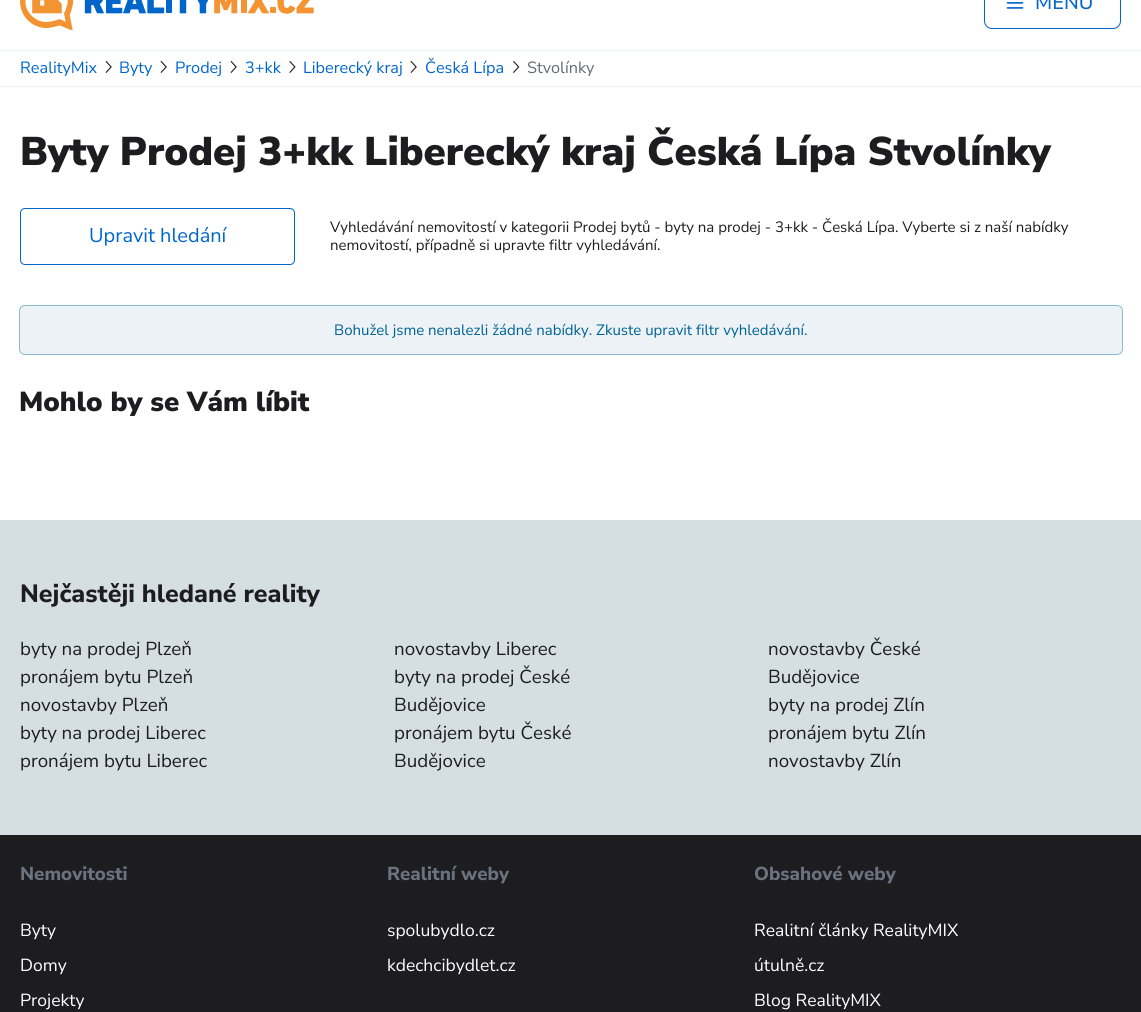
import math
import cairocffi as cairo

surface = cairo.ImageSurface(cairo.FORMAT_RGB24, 1141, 1012)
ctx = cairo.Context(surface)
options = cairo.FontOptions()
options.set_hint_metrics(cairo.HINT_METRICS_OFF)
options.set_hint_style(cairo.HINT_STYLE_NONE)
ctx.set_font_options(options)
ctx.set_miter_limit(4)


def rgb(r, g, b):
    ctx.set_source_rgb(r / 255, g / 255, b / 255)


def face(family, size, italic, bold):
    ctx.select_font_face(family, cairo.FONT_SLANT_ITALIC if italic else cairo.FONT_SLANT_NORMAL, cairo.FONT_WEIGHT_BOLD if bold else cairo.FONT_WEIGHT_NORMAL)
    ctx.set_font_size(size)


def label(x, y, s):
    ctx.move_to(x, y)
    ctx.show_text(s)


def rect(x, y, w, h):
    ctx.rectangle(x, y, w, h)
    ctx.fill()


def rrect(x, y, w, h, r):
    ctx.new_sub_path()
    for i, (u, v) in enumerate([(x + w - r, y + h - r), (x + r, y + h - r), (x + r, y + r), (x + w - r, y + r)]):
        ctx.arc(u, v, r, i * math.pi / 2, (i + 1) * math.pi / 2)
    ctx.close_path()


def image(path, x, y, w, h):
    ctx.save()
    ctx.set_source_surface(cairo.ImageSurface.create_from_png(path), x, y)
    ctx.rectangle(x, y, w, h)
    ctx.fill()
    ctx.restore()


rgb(255, 255, 255)
ctx.paint()
image('image0.png', 20, 0, 294, 30)
rrect(984.5, -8.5, 136, 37, 7.5)
rgb(0, 102, 204)
ctx.set_line_width(1)
ctx.stroke()
image('image1.png', 1006, 2, 18, 7)
face('Nunito Sans Medium', 20, 0, 0)
label(1035, 9, 'MENU')
rgb(236, 242, 246)
rect(0, 50, 1141, 1)
rect(0, 86, 1141, 1)
face('Nunito Sans', 16.25, 0, 0)
rgb(0, 102, 204)
label(20, 73, 'RealityMix')
image('image2.png', 105, 60, 7, 13)
label(119, 73, 'Byty')
image('image2.png', 160, 60, 7, 13)
label(175, 73, 'Prodej')
image('image2.png', 230, 60, 7, 13)
label(245, 73, '3+kk')
image('image3.png', 289, 60, 7, 13)
label(303, 73, 'Liberecký kraj')
image('image2.png', 410, 60, 7, 13)
label(425, 73, 'Česká Lípa')
image('image4.png', 513, 60, 7, 13)
rgb(94, 108, 116)
label(527, 73, 'Stvolínky')
face('Nunito Sans Black', 40, 0, 0)
rgb(29, 29, 31)
label(20, 165, 'Byty Prodej 3+kk Liberecký kraj Česká Lípa Stvolínky')
rrect(20.5, 208.5, 274, 56, 4.5)
rgb(0, 102, 204)
ctx.stroke()
face('Nunito Sans', 20, 0, 0)
label(89, 242, 'Upravit hledání')
face('Nunito Sans', 15, 0, 0)
rgb(29, 29, 31)
label(330, 232, 'Vyhledávání nemovitostí v kategorii Prodej bytů - byty na prodej - 3+kk - Česká Lípa. Vyberte si z naší nabídky')
label(330, 250, 'nemovitostí, případně si upravte filtr vyhledávání.')
rgb(236, 242, 246)
rrect(19.5, 305.5, 1103, 49, 5.5)
ctx.fill_preserve()
rgb(139, 186, 207)
ctx.stroke()
rgb(0, 98, 146)
label(334, 335, 'Bohužel jsme nenalezli žádné nabídky. Zkuste upravit filtr vyhledávání.')
face('Nunito Sans Black', 27.5, 0, 0)
rgb(29, 29, 31)
label(19, 411, 'Mohlo by se Vám líbit')
rgb(213, 222, 227)
rect(0, 520, 1141, 315)
face('Nunito Sans ExtraBold', 25, 0, 0)
rgb(29, 29, 31)
label(20, 602, 'Nejčastěji hledané reality')
face('Nunito Sans', 18.75, 0, 0)
label(20, 655, 'byty na prodej Plzeň')
label(394, 655, 'novostavby Liberec')
label(768, 655, 'novostavby České')
label(768, 683, 'Budějovice')
label(20, 683, 'pronájem bytu Plzeň')
label(394, 683, 'byty na prodej České')
label(394, 711, 'Budějovice')
label(20, 711, 'novostavby Plzeň')
label(768, 711, 'byty na prodej Zlín')
label(20, 739, 'byty na prodej Liberec')
label(394, 739, 'pronájem bytu České')
label(394, 767, 'Budějovice')
label(768, 739, 'pronájem bytu Zlín')
label(20, 767, 'pronájem bytu Liberec')
label(768, 767, 'novostavby Zlín')
rect(0, 835, 1141, 177)
face('Nunito Sans ExtraBold', 18.75, 0, 0)
rgb(107, 114, 128)
label(20, 880, 'Nemovitosti')
face('Nunito Sans', 17.5, 0, 0)
rgb(255, 255, 255)
label(20, 936, 'Byty')
label(20, 971, 'Domy')
label(20, 1006, 'Projekty')
face('Nunito Sans ExtraBold', 18.75, 0, 0)
rgb(107, 114, 128)
label(387, 880, 'Realitní weby')
face('Nunito Sans', 17.5, 0, 0)
rgb(255, 255, 255)
label(387, 936, 'spolubydlo.cz')
label(387, 971, 'kdechcibydlet.cz')
face('Nunito Sans ExtraBold', 18.75, 0, 0)
rgb(107, 114, 128)
label(754, 880, 'Obsahové weby')
face('Nunito Sans', 17.5, 0, 0)
rgb(255, 255, 255)
label(754, 936, 'Realitní články RealityMIX')
label(754, 971, 'útulně.cz')
label(754, 1006, 'Blog RealityMIX')
surface.write_to_png('render.png')
